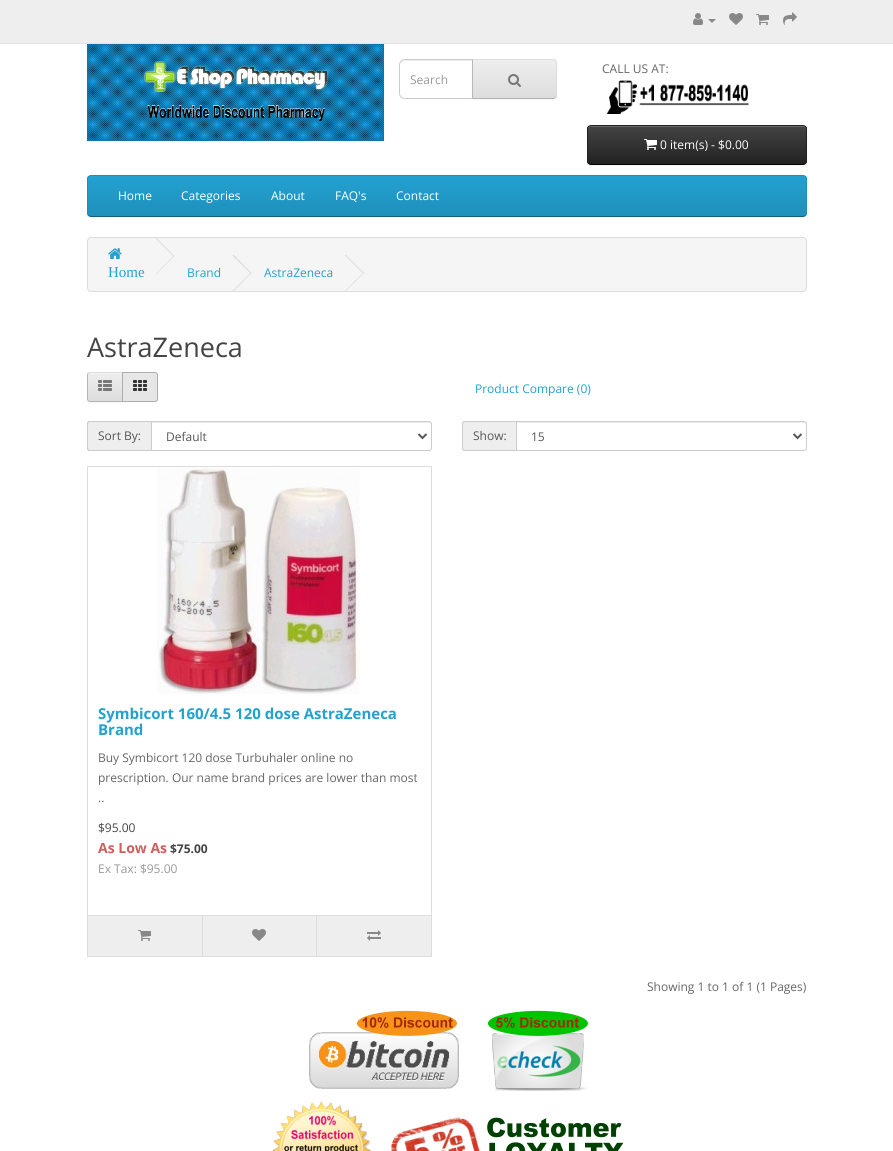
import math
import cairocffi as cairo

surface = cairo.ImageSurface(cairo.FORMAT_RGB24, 893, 1151)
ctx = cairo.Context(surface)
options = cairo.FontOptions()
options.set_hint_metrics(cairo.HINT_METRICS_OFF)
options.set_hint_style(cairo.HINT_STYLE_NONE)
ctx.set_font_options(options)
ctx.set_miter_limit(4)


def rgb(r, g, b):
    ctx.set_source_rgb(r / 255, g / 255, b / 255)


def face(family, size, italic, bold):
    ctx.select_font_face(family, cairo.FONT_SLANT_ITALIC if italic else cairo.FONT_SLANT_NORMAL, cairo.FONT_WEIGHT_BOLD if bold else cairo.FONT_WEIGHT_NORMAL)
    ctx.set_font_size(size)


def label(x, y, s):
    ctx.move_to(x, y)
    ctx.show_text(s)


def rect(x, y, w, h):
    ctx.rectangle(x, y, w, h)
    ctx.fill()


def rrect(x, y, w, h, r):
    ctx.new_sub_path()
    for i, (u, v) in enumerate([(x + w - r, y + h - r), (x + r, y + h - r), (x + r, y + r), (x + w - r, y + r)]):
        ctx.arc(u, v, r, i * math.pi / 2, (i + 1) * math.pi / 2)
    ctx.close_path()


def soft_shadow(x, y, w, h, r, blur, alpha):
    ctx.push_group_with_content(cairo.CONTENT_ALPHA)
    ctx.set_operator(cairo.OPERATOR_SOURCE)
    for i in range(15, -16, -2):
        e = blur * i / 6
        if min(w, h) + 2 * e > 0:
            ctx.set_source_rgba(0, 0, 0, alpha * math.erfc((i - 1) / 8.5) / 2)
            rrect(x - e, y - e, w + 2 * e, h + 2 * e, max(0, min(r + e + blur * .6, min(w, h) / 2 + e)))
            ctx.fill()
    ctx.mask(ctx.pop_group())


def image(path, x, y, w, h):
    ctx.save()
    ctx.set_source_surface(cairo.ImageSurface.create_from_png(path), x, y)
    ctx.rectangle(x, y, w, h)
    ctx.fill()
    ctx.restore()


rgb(255, 255, 255)
ctx.paint()
rgb(238, 238, 238)
rect(0, 0, 893, 43)
rgb(226, 226, 226)
rect(0, 43, 893, 1)
image('image0.png', 693, 13, 10, 12)
rgb(136, 136, 136)
ctx.new_path()
ctx.move_to(708, 19)
ctx.line_to(716, 19)
ctx.line_to(712, 23)
ctx.close_path()
ctx.fill()
image('image1.png', 729, 13, 14, 12)
image('image2.png', 756, 14, 13, 11)
image('image3.png', 783, 12, 14, 13)
image('image4.png', 87, 44, 297, 97)
rgb(236, 236, 236)
ctx.new_path()
ctx.move_to(405, 61)
ctx.line_to(472, 61)
ctx.line_to(472, 60)
ctx.line_to(405, 60)
ctx.curve_to(402, 60, 400, 62, 400, 65)
ctx.line_to(400, 66)
ctx.curve_to(400, 63, 402, 61, 405, 61)
ctx.close_path()
ctx.fill()
ctx.new_path()
ctx.move_to(405, 59.5)
ctx.line_to(472.5, 59.5)
ctx.line_to(472.5, 98.5)
ctx.line_to(405, 98.5)
ctx.curve_to(402, 98.5, 399.5, 96, 399.5, 93)
ctx.line_to(399.5, 65)
ctx.curve_to(399.5, 62, 402, 59.5, 405, 59.5)
ctx.close_path()
rgb(204, 204, 204)
ctx.set_line_width(1)
ctx.stroke()
face('Open Sans', 12, 0, 0)
rgb(153, 153, 153)
label(410, 84, 'Search')
rgb(0, 0, 0)
soft_shadow(472, 60, 85, 40, 4, 1, 0.05)
rgb(231, 231, 231)
ctx.new_path()
ctx.move_to(472, 59)
ctx.line_to(553, 59)
ctx.curve_to(555, 59, 557, 61, 557, 63)
ctx.line_to(557, 95)
ctx.curve_to(557, 97, 555, 99, 553, 99)
ctx.line_to(472, 99)
ctx.close_path()
ctx.fill()
ctx.save()
ctx.new_path()
ctx.move_to(472, 59)
ctx.line_to(553, 59)
ctx.curve_to(555, 59, 557, 61, 557, 63)
ctx.line_to(557, 95)
ctx.curve_to(557, 97, 555, 99, 553, 99)
ctx.line_to(472, 99)
ctx.close_path()
ctx.clip()
gradient = cairo.LinearGradient(515, 60, 515, 98)
gradient.add_color_stop_rgba(0, 0.933, 0.933, 0.933, 1)
gradient.add_color_stop_rgba(1, 0.867, 0.867, 0.867, 1)
ctx.set_source(gradient)
rect(473, 60, 84, 38)
ctx.restore()
rgb(241, 241, 241)
ctx.new_path()
ctx.move_to(473, 61)
ctx.line_to(553, 61)
ctx.curve_to(555, 61, 556, 62, 556, 64)
ctx.line_to(556, 63)
ctx.curve_to(556, 61, 555, 60, 553, 60)
ctx.line_to(473, 60)
ctx.close_path()
ctx.fill()
rgb(221, 221, 221)
ctx.new_path()
ctx.move_to(472, 59)
ctx.line_to(473, 60)
ctx.line_to(554, 60)
ctx.line_to(555, 61)
ctx.line_to(556, 60)
ctx.line_to(553, 59)
ctx.close_path()
ctx.fill()
ctx.new_path()
ctx.move_to(557, 95)
ctx.line_to(557, 63)
ctx.curve_to(557, 62, 556.5, 61, 556, 60)
ctx.line_to(555, 61)
ctx.curve_to(556, 61, 556, 62, 556, 63)
ctx.line_to(556, 95)
ctx.curve_to(556, 96, 556, 97, 555, 97)
ctx.line_to(556, 98)
ctx.curve_to(556.5, 97, 557, 96, 557, 95)
ctx.close_path()
ctx.fill()
rgb(179, 179, 179)
ctx.new_path()
ctx.move_to(553, 99)
ctx.line_to(556, 98)
ctx.line_to(555, 97)
ctx.line_to(554, 98)
ctx.line_to(473, 98)
ctx.line_to(472, 99)
ctx.close_path()
ctx.fill()
rgb(183, 183, 183)
ctx.new_path()
ctx.move_to(472, 59)
ctx.line_to(472, 99)
ctx.line_to(473, 98)
ctx.line_to(473, 60)
ctx.close_path()
ctx.fill()
image('image5.png', 508, 74, 13, 13)
rgb(102, 102, 102)
label(602, 73, 'CALL US AT:')
image('image6.png', 606, 80, 143, 34)
rgb(0, 0, 0)
soft_shadow(587, 126, 220, 40, 4, 1, 0.05)
ctx.save()
rrect(587, 125, 220, 40, 4)
ctx.clip()
gradient = cairo.LinearGradient(697, 126, 697, 164)
gradient.add_color_stop_rgba(0, 0.267, 0.267, 0.267, 1)
gradient.add_color_stop_rgba(1, 0.133, 0.133, 0.133, 1)
ctx.set_source(gradient)
rect(587, 126, 220, 38)
ctx.restore()
rgb(105, 105, 105)
ctx.new_path()
ctx.move_to(591, 127)
ctx.line_to(803, 127)
ctx.curve_to(805, 127, 806, 128, 806, 130)
ctx.line_to(806, 129)
ctx.curve_to(806, 127, 805, 126, 803, 126)
ctx.line_to(591, 126)
ctx.curve_to(589, 126, 588, 127, 588, 129)
ctx.line_to(588, 130)
ctx.curve_to(588, 128, 589, 127, 591, 127)
ctx.close_path()
ctx.fill()
ctx.new_path()
ctx.move_to(805.5, 163.5)
ctx.curve_to(805, 164, 804, 164.5, 803, 164.5)
ctx.line_to(591, 164.5)
ctx.curve_to(590, 164.5, 589, 164, 588.5, 163.5)
rgb(0, 0, 0)
ctx.stroke()
ctx.new_path()
ctx.move_to(588.5, 163.5)
ctx.curve_to(588, 163, 587.5, 162, 587.5, 161)
ctx.line_to(587.5, 129)
ctx.curve_to(587.5, 128, 588, 127, 588.5, 126.5)
ctx.curve_to(589, 126, 590, 125.5, 591, 125.5)
ctx.line_to(803, 125.5)
ctx.curve_to(804, 125.5, 805, 126, 805.5, 126.5)
ctx.curve_to(806, 127, 806.5, 128, 806.5, 129)
ctx.line_to(806.5, 161)
ctx.curve_to(806.5, 162, 806, 163, 805.5, 163.5)
rgb(34, 34, 34)
ctx.stroke()
image('image7.png', 644, 139, 13, 11)
rgb(255, 255, 255)
label(660, 149, '0 item(s) - $0.00')
ctx.save()
rrect(87, 175, 720, 42, 4)
ctx.clip()
gradient = cairo.LinearGradient(447, 176, 447, 216)
gradient.add_color_stop_rgba(0, 0.137, 0.631, 0.82, 1)
gradient.add_color_stop_rgba(1, 0.122, 0.565, 0.733, 1)
ctx.set_source(gradient)
rect(87, 176, 720, 40)
ctx.restore()
ctx.new_path()
ctx.move_to(805.5, 215.5)
ctx.curve_to(805, 216, 804, 216.5, 803, 216.5)
ctx.line_to(91, 216.5)
ctx.curve_to(90, 216.5, 89, 216, 88.5, 215.5)
rgb(20, 94, 122)
ctx.stroke()
ctx.new_path()
ctx.move_to(88.5, 215.5)
ctx.curve_to(88, 215, 87.5, 214, 87.5, 213)
ctx.line_to(87.5, 179)
ctx.curve_to(87.5, 178, 88, 177, 88.5, 176.5)
ctx.curve_to(89, 176, 90, 175.5, 91, 175.5)
ctx.line_to(803, 175.5)
ctx.curve_to(804, 175.5, 805, 176, 805.5, 176.5)
ctx.curve_to(806, 177, 806.5, 178, 806.5, 179)
ctx.line_to(806.5, 213)
ctx.curve_to(806.5, 214, 806, 215, 805.5, 215.5)
rgb(31, 144, 187)
ctx.stroke()
rgb(255, 255, 255)
label(118, 200, 'Home')
label(181, 200, 'Categories')
label(271, 200, 'About')
label(335, 200, 'FAQ\'s')
label(396, 200, 'Contact')
rgb(245, 245, 245)
rrect(87.5, 237.5, 719, 54, 3.5)
ctx.fill_preserve()
rgb(221, 221, 221)
ctx.stroke()
image('image8.png', 108, 248, 14, 11)
face('Liberation Serif', 15, 0, 0)
rgb(35, 161, 209)
label(108, 277, 'Home')
rgb(221, 221, 221)
ctx.new_path()
ctx.move_to(155.5, 238.5)
ctx.line_to(156, 237.5)
ctx.line_to(174.5, 256)
ctx.line_to(174, 257)
ctx.close_path()
ctx.fill()
ctx.new_path()
ctx.move_to(155.5, 274)
ctx.line_to(174, 255.5)
ctx.line_to(174.5, 256)
ctx.line_to(156, 274.5)
ctx.close_path()
ctx.fill()
face('Open Sans', 12, 0, 0)
rgb(35, 161, 209)
label(187, 277, 'Brand')
rgb(221, 221, 221)
ctx.new_path()
ctx.move_to(232.5, 255.5)
ctx.line_to(233.5, 254.5)
ctx.line_to(251.5, 273)
ctx.line_to(251, 274)
ctx.close_path()
ctx.fill()
ctx.new_path()
ctx.move_to(232.5, 291)
ctx.line_to(251, 272.5)
ctx.line_to(251.5, 273)
ctx.line_to(233.5, 291.5)
ctx.close_path()
ctx.fill()
rgb(35, 161, 209)
label(264, 277, 'AstraZeneca')
rgb(221, 221, 221)
ctx.new_path()
ctx.move_to(345, 255.5)
ctx.line_to(345.5, 254.5)
ctx.line_to(364, 273)
ctx.line_to(363.5, 274)
ctx.close_path()
ctx.fill()
ctx.new_path()
ctx.move_to(345, 291)
ctx.line_to(363.5, 272.5)
ctx.line_to(364, 273)
ctx.line_to(345.5, 291.5)
ctx.close_path()
ctx.fill()
face('Open Sans', 27, 0, 0)
rgb(68, 68, 68)
label(87, 357, 'AstraZeneca')
rgb(0, 0, 0)
soft_shadow(87, 373, 36, 30, 3, 1, 0.05)
rgb(231, 231, 231)
ctx.new_path()
ctx.move_to(90, 372)
ctx.line_to(123, 372)
ctx.line_to(123, 402)
ctx.line_to(90, 402)
ctx.curve_to(88.5, 402, 87, 400.5, 87, 399)
ctx.line_to(87, 375)
ctx.curve_to(87, 373.5, 88.5, 372, 90, 372)
ctx.close_path()
ctx.fill()
ctx.save()
ctx.new_path()
ctx.move_to(90, 372)
ctx.line_to(123, 372)
ctx.line_to(123, 402)
ctx.line_to(90, 402)
ctx.curve_to(88.5, 402, 87, 400.5, 87, 399)
ctx.line_to(87, 375)
ctx.curve_to(87, 373.5, 88.5, 372, 90, 372)
ctx.close_path()
ctx.clip()
gradient = cairo.LinearGradient(105, 373, 105, 401)
gradient.add_color_stop_rgba(0, 0.933, 0.933, 0.933, 1)
gradient.add_color_stop_rgba(1, 0.867, 0.867, 0.867, 1)
ctx.set_source(gradient)
rect(87, 373, 35, 28)
ctx.restore()
rgb(241, 241, 241)
ctx.new_path()
ctx.move_to(90, 374)
ctx.line_to(122, 374)
ctx.line_to(122, 373)
ctx.line_to(90, 373)
ctx.curve_to(89, 373, 88, 374, 88, 375)
ctx.line_to(88, 376)
ctx.curve_to(88, 375, 89, 374, 90, 374)
ctx.close_path()
ctx.fill()
rgb(221, 221, 221)
ctx.new_path()
ctx.move_to(90, 372)
ctx.curve_to(89, 372, 88.5, 372.5, 88, 373)
ctx.line_to(88.5, 373.5)
ctx.line_to(90, 373)
ctx.line_to(122, 373)
ctx.line_to(123, 372)
ctx.close_path()
ctx.fill()
rgb(179, 179, 179)
ctx.new_path()
ctx.move_to(123, 402)
ctx.line_to(122, 401)
ctx.line_to(90, 401)
ctx.line_to(88.5, 400.5)
ctx.line_to(88, 401)
ctx.curve_to(88.5, 401.5, 89, 402, 90, 402)
ctx.close_path()
ctx.fill()
rgb(183, 183, 183)
ctx.new_path()
ctx.move_to(87, 375)
ctx.line_to(87, 399)
ctx.curve_to(87, 400, 87.5, 400.5, 88, 401)
ctx.line_to(88.5, 400.5)
ctx.curve_to(88, 400, 88, 399.5, 88, 399)
ctx.line_to(88, 375)
ctx.curve_to(88, 374.5, 88, 374, 88.5, 373.5)
ctx.line_to(88, 373)
ctx.curve_to(87.5, 373.5, 87, 374, 87, 375)
ctx.close_path()
ctx.fill()
image('image9.png', 98, 380, 14, 11)
rgb(230, 230, 230)
ctx.new_path()
ctx.move_to(122.5, 372.5)
ctx.line_to(155, 372.5)
ctx.curve_to(156.5, 372.5, 157.5, 373.5, 157.5, 375)
ctx.line_to(157.5, 399)
ctx.curve_to(157.5, 400.5, 156.5, 401.5, 155, 401.5)
ctx.line_to(122.5, 401.5)
ctx.close_path()
ctx.fill_preserve()
rgb(173, 173, 173)
ctx.stroke()
image('image10.png', 133, 380, 14, 11)
face('Open Sans', 12, 0, 0)
rgb(35, 161, 209)
label(475, 393, 'Product Compare (0)')
rgb(238, 238, 238)
ctx.new_path()
ctx.move_to(90, 421)
ctx.line_to(151, 421)
ctx.line_to(151, 451)
ctx.line_to(90, 451)
ctx.curve_to(88.5, 451, 87, 449.5, 87, 448)
ctx.line_to(87, 424)
ctx.curve_to(87, 422.5, 88.5, 421, 90, 421)
ctx.close_path()
ctx.fill()
rgb(204, 204, 204)
ctx.set_fill_rule(cairo.FILL_RULE_EVEN_ODD)
ctx.new_path()
ctx.move_to(90, 421)
ctx.line_to(151, 421)
ctx.line_to(151, 451)
ctx.line_to(90, 451)
ctx.curve_to(88, 451, 87, 450, 87, 448)
ctx.line_to(87, 424)
ctx.curve_to(87, 422, 88, 421, 90, 421)
ctx.close_path()
ctx.move_to(90, 422)
ctx.line_to(151, 422)
ctx.line_to(151, 450)
ctx.line_to(90, 450)
ctx.curve_to(89, 450, 88, 449, 88, 448)
ctx.line_to(88, 424)
ctx.curve_to(88, 423, 89, 422, 90, 422)
ctx.close_path()
ctx.fill()
rgb(85, 85, 85)
label(98, 440, 'Sort By:')
rgb(236, 236, 236)
ctx.set_fill_rule(cairo.FILL_RULE_WINDING)
ctx.new_path()
ctx.move_to(152, 423)
ctx.line_to(429, 423)
ctx.curve_to(430, 423, 431, 424, 431, 425)
ctx.curve_to(431, 424, 431, 422, 429, 422)
ctx.line_to(152, 422)
ctx.close_path()
ctx.fill()
ctx.new_path()
ctx.move_to(151.5, 421.5)
ctx.line_to(429, 421.5)
ctx.curve_to(430.5, 421.5, 431.5, 422.5, 431.5, 424)
ctx.line_to(431.5, 448)
ctx.curve_to(431.5, 449.5, 430.5, 450.5, 429, 450.5)
ctx.line_to(151.5, 450.5)
ctx.close_path()
rgb(204, 204, 204)
ctx.stroke()
ctx.new_path()
ctx.move_to(418.5, 434)
ctx.line_to(422.5, 438)
ctx.line_to(426.5, 434)
rgb(85, 85, 85)
ctx.set_line_width(2)
ctx.stroke()
label(166, 441, 'Default')
rgb(238, 238, 238)
ctx.new_path()
ctx.move_to(465, 421)
ctx.line_to(516, 421)
ctx.line_to(516, 451)
ctx.line_to(465, 451)
ctx.curve_to(463.5, 451, 462, 449.5, 462, 448)
ctx.line_to(462, 424)
ctx.curve_to(462, 422.5, 463.5, 421, 465, 421)
ctx.close_path()
ctx.fill()
rgb(204, 204, 204)
ctx.set_fill_rule(cairo.FILL_RULE_EVEN_ODD)
ctx.new_path()
ctx.move_to(465, 421)
ctx.line_to(516, 421)
ctx.line_to(516, 451)
ctx.line_to(465, 451)
ctx.curve_to(463, 451, 462, 450, 462, 448)
ctx.line_to(462, 424)
ctx.curve_to(462, 422, 463, 421, 465, 421)
ctx.close_path()
ctx.move_to(465, 422)
ctx.line_to(516, 422)
ctx.line_to(516, 450)
ctx.line_to(465, 450)
ctx.curve_to(464, 450, 463, 449, 463, 448)
ctx.line_to(463, 424)
ctx.curve_to(463, 423, 464, 422, 465, 422)
ctx.close_path()
ctx.fill()
rgb(85, 85, 85)
label(473, 440, 'Show:')
rgb(236, 236, 236)
ctx.set_fill_rule(cairo.FILL_RULE_WINDING)
ctx.new_path()
ctx.move_to(517, 423)
ctx.line_to(804, 423)
ctx.curve_to(805, 423, 806, 424, 806, 425)
ctx.line_to(805, 422)
ctx.line_to(517, 422)
ctx.close_path()
ctx.fill()
ctx.new_path()
ctx.move_to(516.5, 421.5)
ctx.line_to(804, 421.5)
ctx.curve_to(805.5, 421.5, 806.5, 422.5, 806.5, 424)
ctx.line_to(806.5, 448)
ctx.curve_to(806.5, 449.5, 805.5, 450.5, 804, 450.5)
ctx.line_to(516.5, 450.5)
ctx.close_path()
rgb(204, 204, 204)
ctx.set_line_width(1)
ctx.stroke()
ctx.new_path()
ctx.move_to(793.5, 434)
ctx.line_to(797.5, 438)
ctx.line_to(801.5, 434)
rgb(85, 85, 85)
ctx.set_line_width(2)
ctx.stroke()
label(531, 441, '15')
ctx.rectangle(87.5, 466.5, 344, 490)
rgb(221, 221, 221)
ctx.set_line_width(1)
ctx.stroke()
image('image11.png', 157, 467, 204, 227)
face('Open Sans', 15, 0, 1)
rgb(35, 161, 209)
label(98, 719, 'Symbicort 160/4.5 120 dose AstraZeneca')
label(98, 735, 'Brand')
face('Open Sans', 12, 0, 0)
rgb(102, 102, 102)
label(98, 762, 'Buy Symbicort 120 dose Turbuhaler online no')
label(98, 782, 'prescription. Our name brand prices are lower than most')
label(98, 802, '..')
rgb(68, 68, 68)
label(98, 832, '$95.00')
face('Open Sans', 14, 0, 1)
rgb(207, 94, 94)
label(98, 853, 'As Low As')
face('Open Sans', 12, 0, 1)
rgb(68, 68, 68)
label(170, 853, '$75.00')
face('Open Sans', 12, 0, 0)
rgb(153, 153, 153)
label(98, 873, 'Ex Tax: $95.00')
rgb(238, 238, 238)
rect(88, 916, 343, 40)
rgb(221, 221, 221)
rect(88, 915, 343, 1)
image('image2.png', 138, 930, 13, 11)
rect(202, 916, 1, 40)
image('image1.png', 252, 929, 14, 12)
rect(316, 916, 1, 40)
image('image12.png', 367, 930, 14, 11)
rgb(102, 102, 102)
label(647, 991, 'Showing 1 to 1 of 1 (1 Pages)')
image('image13.png', 309, 1010, 279, 81)
image('image14.png', 272, 1101, 99, 50)
image('image15.png', 390, 1117, 234, 34)
surface.write_to_png('render.png')
